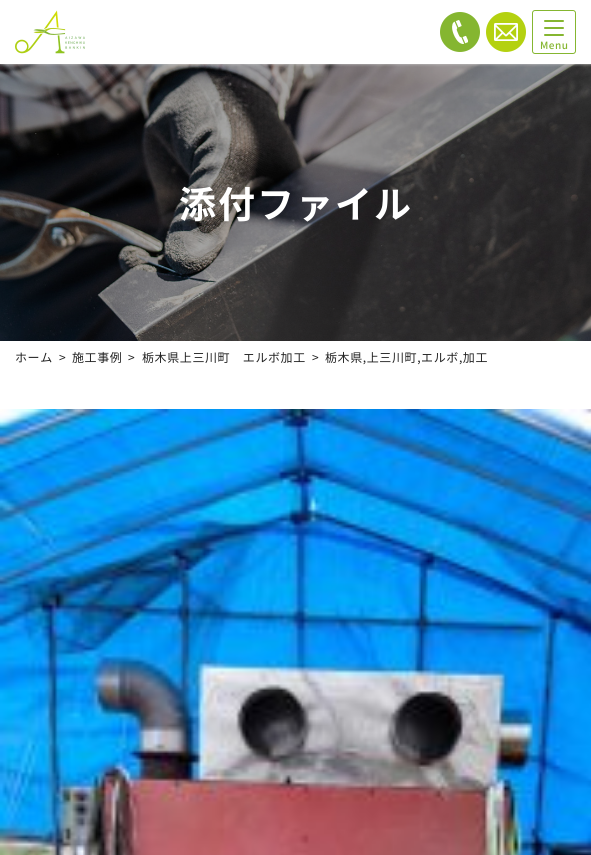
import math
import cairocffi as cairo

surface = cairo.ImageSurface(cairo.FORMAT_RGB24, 591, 855)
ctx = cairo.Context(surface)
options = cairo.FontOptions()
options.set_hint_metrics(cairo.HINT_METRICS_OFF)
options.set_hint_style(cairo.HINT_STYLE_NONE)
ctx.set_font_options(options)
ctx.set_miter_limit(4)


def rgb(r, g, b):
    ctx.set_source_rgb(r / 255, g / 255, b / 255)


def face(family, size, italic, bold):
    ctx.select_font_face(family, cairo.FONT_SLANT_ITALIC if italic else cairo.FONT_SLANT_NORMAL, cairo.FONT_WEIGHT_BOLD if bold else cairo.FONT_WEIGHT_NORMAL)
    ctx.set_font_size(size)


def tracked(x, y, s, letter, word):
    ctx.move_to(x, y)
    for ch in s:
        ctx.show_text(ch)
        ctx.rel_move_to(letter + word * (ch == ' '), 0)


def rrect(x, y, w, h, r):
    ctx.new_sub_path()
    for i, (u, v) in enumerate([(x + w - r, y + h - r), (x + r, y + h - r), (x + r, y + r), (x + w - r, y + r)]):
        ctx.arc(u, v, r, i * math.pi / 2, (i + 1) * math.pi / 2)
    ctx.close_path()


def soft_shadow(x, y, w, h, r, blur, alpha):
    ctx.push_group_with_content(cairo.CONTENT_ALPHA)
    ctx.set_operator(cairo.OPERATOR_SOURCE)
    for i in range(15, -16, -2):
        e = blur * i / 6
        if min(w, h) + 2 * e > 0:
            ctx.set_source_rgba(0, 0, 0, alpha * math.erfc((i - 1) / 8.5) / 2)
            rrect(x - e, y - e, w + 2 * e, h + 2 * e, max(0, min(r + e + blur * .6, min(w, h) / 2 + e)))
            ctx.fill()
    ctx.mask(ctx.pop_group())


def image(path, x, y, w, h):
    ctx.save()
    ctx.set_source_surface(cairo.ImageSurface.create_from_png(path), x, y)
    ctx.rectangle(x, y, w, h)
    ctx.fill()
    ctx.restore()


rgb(255, 255, 255)
ctx.paint()
image('image3.png', 0, 64, 591, 277)
ctx.save()
ctx.rectangle(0, 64, 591, 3)
ctx.clip()
rgb(204, 204, 204)
soft_shadow(0, 0, 591, 64, 0, 1.5, 1)
ctx.restore()
image('image0.png', 15, 10, 70, 44)
rgb(133, 182, 48)
ctx.arc(460, 32, 20, 0, 2 * math.pi)
ctx.fill()
image('image1.png', 452, 20, 16, 24)
rgb(180, 209, 16)
ctx.arc(506, 32, 20, 0, 2 * math.pi)
ctx.fill()
image('image2.png', 494, 23, 24, 18)
rrect(532.5, 10.5, 43, 43, 2.5)
rgb(133, 182, 48)
ctx.set_line_width(1)
ctx.stroke()
rrect(544, 20, 20, 2, 1)
ctx.fill()
rrect(544, 27, 20, 2, 1)
ctx.fill()
rrect(544, 34, 20, 2, 1)
ctx.fill()
face('Noto Sans JP Medium', 10, 0, 0)
tracked(540, 49, 'Menu', 0.5, 0)
face('Noto Sans JP', 37, 0, 1)
rgb(255, 255, 255)
tracked(179, 218, '添付ファイル', 2, 0)
face('Noto Sans JP', 12, 0, 0)
rgb(34, 34, 34)
tracked(15, 362, 'ホーム', 0.6, 0)
tracked(59, 362, '>', 0.6, 0)
tracked(72, 362, '施工事例', 0.6, 0)
tracked(128, 362, '>', 0.6, 0)
tracked(142, 362, '栃木県上三川町　エルボ加工', 0.6, 0)
tracked(312, 362, '>', 0.6, 0)
tracked(325, 362, '栃木県,上三川町,エルボ,加工', 0.6, 0)
image('image4.png', 0, 409, 591, 446)
surface.write_to_png('render.png')
